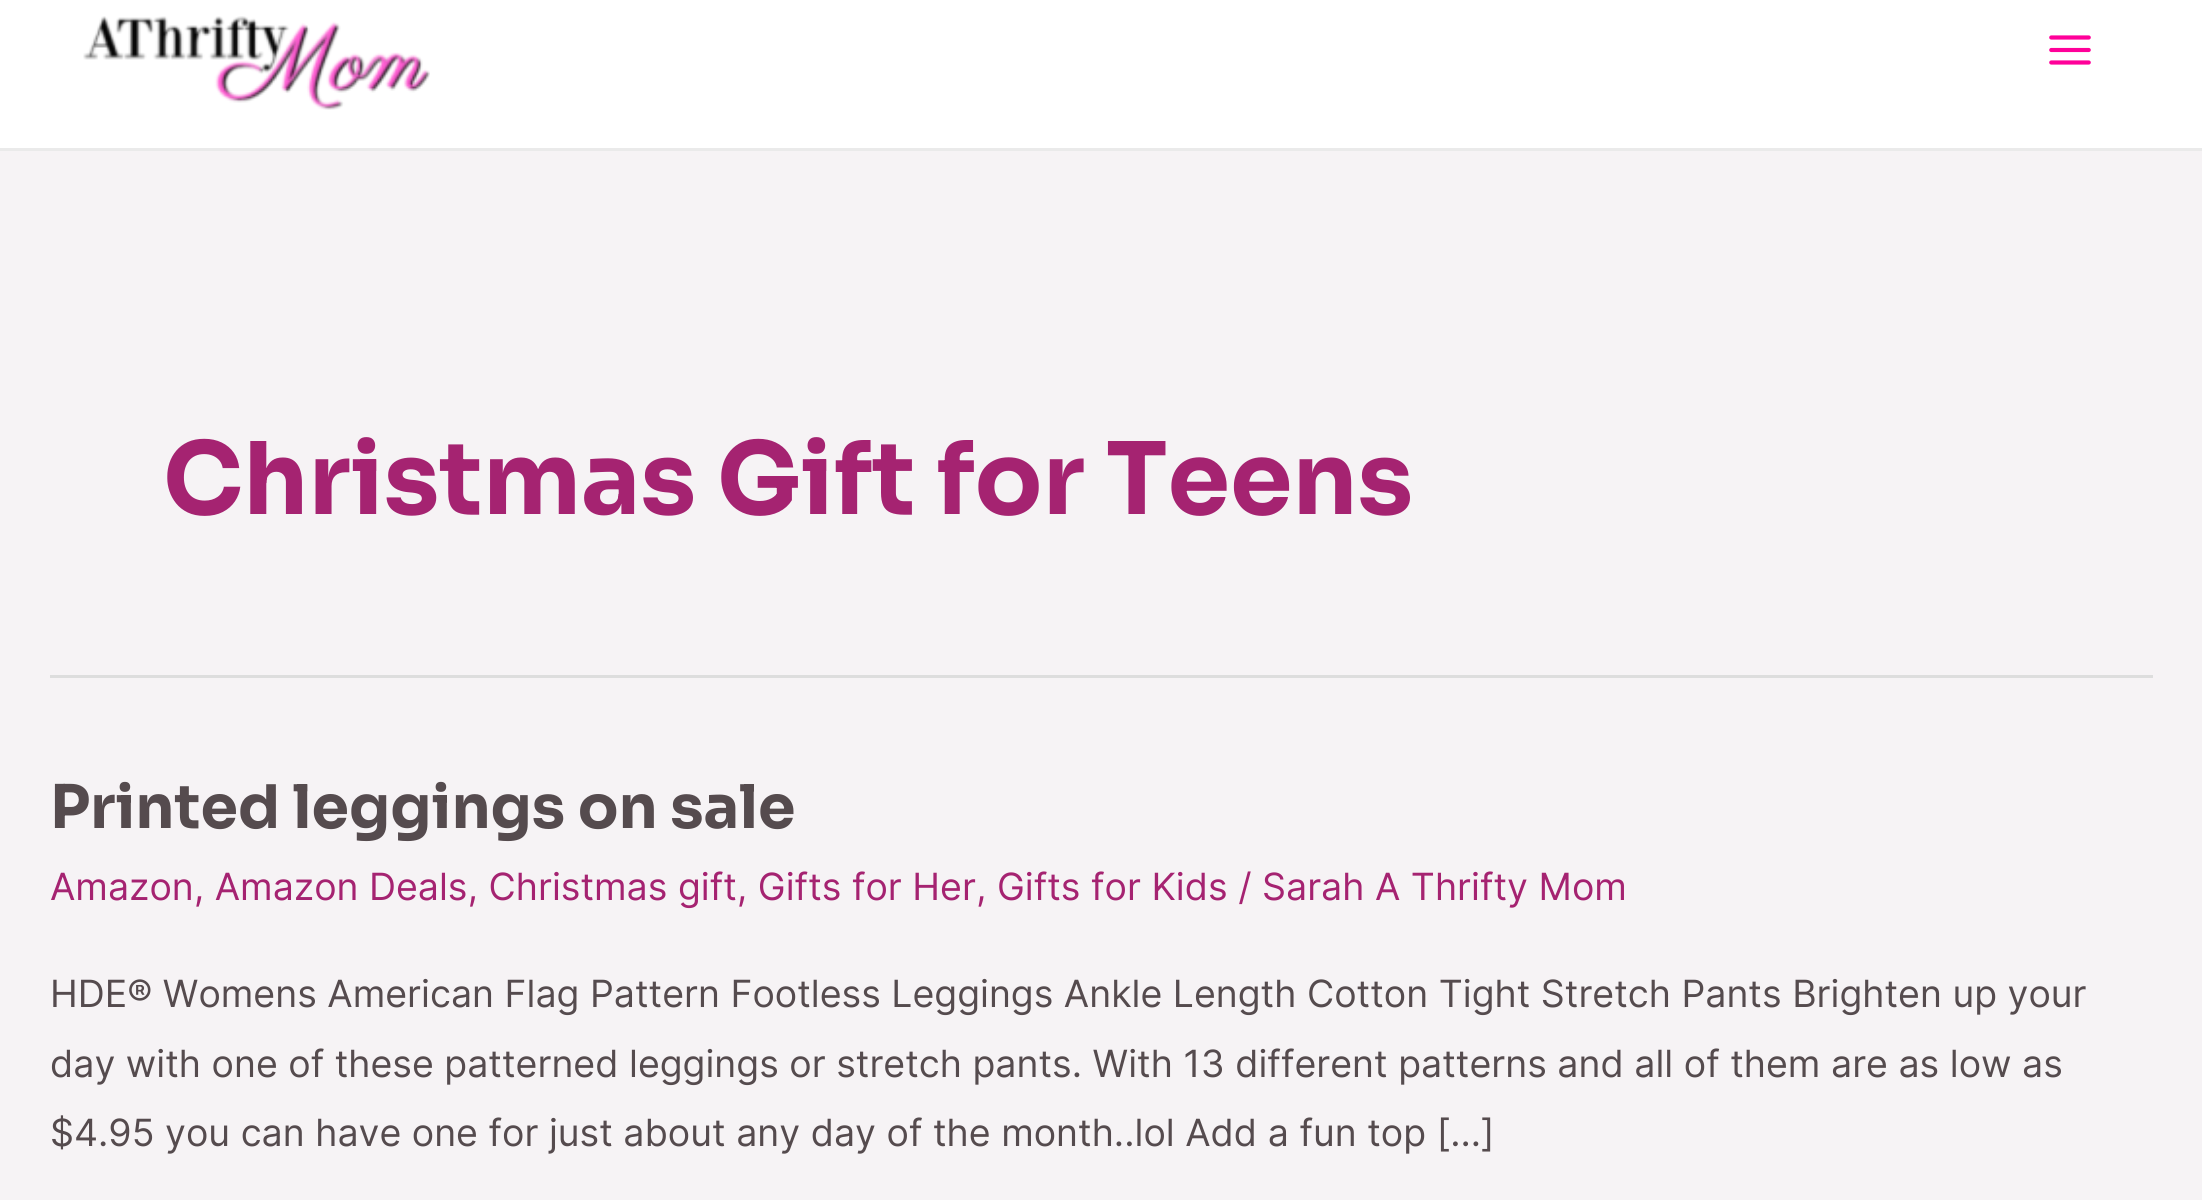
import math
import cairocffi as cairo

surface = cairo.ImageSurface(cairo.FORMAT_RGB24, 2202, 1200)
ctx = cairo.Context(surface)
options = cairo.FontOptions()
options.set_hint_metrics(cairo.HINT_METRICS_OFF)
options.set_hint_style(cairo.HINT_STYLE_NONE)
ctx.set_font_options(options)
ctx.set_miter_limit(4)


def rgb(r, g, b):
    ctx.set_source_rgb(r / 255, g / 255, b / 255)


def face(family, size, italic, bold):
    ctx.select_font_face(family, cairo.FONT_SLANT_ITALIC if italic else cairo.FONT_SLANT_NORMAL, cairo.FONT_WEIGHT_BOLD if bold else cairo.FONT_WEIGHT_NORMAL)
    ctx.set_font_size(size)


def label(x, y, s):
    ctx.move_to(x, y)
    ctx.show_text(s)


def rect(x, y, w, h):
    ctx.rectangle(x, y, w, h)
    ctx.fill()


def image(path, x, y, w, h):
    ctx.save()
    ctx.set_source_surface(cairo.ImageSurface.create_from_png(path), x, y)
    ctx.rectangle(x, y, w, h)
    ctx.fill()
    ctx.restore()


rgb(246, 243, 245)
ctx.paint()
rgb(255, 255, 255)
rect(0, 0, 2202, 148)
rgb(234, 234, 234)
rect(0, 148, 2202, 3)
image('image0.png', 83, 16, 347, 94)
image('image1.png', 2049, 35, 42, 30)
rgb(221, 221, 221)
rect(50, 675, 2103, 3)
face('Sora', 100, 0, 1)
rgb(165, 35, 113)
label(163, 514, 'Christmas Gift for Teens')
face('Sora', 60, 0, 1)
rgb(85, 75, 78)
label(50, 828, 'Printed leggings on sale')
face('Inter', 37.5, 0, 0)
rgb(165, 35, 113)
label(50, 900, 'Amazon, Amazon Deals, Christmas gift, Gifts for Her, Gifts for Kids / Sarah A Thrifty Mom')
rgb(85, 75, 78)
label(50, 1007, 'HDE® Womens American Flag Pattern Footless Leggings Ankle Length Cotton Tight Stretch Pants Brighten up your')
label(50, 1077, 'day with one of these patterned leggings or stretch pants. With 13 different patterns and all of them are as low as')
label(50, 1146, '$4.95 you can have one for just about any day of the month..lol Add a fun top […]')
surface.write_to_png('render.png')
